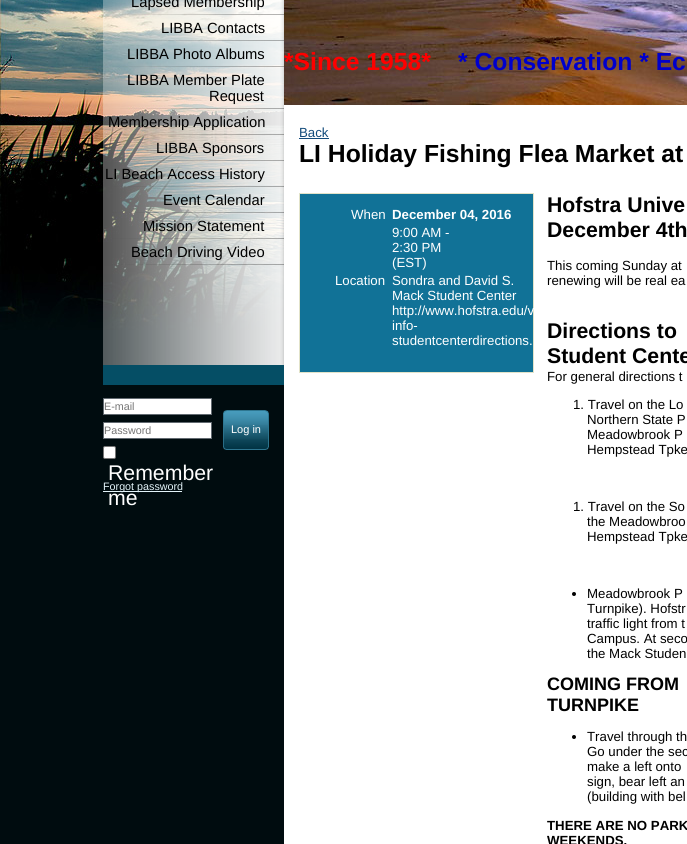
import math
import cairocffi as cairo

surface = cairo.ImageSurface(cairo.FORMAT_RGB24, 687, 844)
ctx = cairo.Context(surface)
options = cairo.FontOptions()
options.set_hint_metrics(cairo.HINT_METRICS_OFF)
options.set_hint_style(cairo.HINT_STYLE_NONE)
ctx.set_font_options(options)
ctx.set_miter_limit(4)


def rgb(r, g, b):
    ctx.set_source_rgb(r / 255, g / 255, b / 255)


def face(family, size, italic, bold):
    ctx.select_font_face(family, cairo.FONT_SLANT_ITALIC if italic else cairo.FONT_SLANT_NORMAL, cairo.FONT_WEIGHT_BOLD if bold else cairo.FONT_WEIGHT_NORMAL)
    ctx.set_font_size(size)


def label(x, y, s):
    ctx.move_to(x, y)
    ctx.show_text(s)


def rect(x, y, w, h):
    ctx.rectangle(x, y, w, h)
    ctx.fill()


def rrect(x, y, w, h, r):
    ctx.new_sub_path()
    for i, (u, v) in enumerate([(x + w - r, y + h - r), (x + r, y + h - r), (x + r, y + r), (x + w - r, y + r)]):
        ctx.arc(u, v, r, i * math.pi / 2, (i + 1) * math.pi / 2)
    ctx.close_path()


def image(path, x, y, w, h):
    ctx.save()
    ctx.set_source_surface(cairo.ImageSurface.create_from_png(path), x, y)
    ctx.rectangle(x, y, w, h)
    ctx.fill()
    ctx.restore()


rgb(0, 12, 15)
ctx.paint()
image('image0.png', 0, 0, 284, 330)
image('image1.png', 103, 0, 181, 15)
face('Liberation Sans', 14.75, 0, 0)
rgb(0, 0, 0)
label(131, 7, 'Lapsed Membership')
image('image2.png', 103, 15, 181, 26)
label(161, 33, 'LIBBA Contacts')
image('image3.png', 103, 41, 181, 26)
label(127, 59, 'LIBBA Photo Albums')
image('image4.png', 103, 67, 181, 42)
label(127, 85, 'LIBBA Member Plate')
label(209, 101, 'Request')
image('image5.png', 103, 109, 181, 26)
label(108, 127, 'Membership Application')
image('image6.png', 103, 135, 181, 26)
label(156, 153, 'LIBBA Sponsors')
image('image7.png', 103, 161, 181, 26)
label(105, 179, 'LI Beach Access History')
image('image8.png', 103, 187, 181, 26)
label(163, 205, 'Event Calendar')
image('image9.png', 103, 213, 181, 26)
label(143, 231, 'Mission Statement')
image('image10.png', 103, 239, 181, 26)
label(131, 257, 'Beach Driving Video')
image('image11.png', 103, 265, 181, 100)
rgb(5, 78, 101)
rect(103, 365, 181, 20)
rgb(255, 255, 255)
ctx.rectangle(103.5, 398.5, 108, 16)
ctx.fill_preserve()
rgb(98, 106, 113)
ctx.set_line_width(1)
ctx.stroke()
face('Liberation Sans', 10.75, 0, 0)
rgb(117, 117, 117)
label(104, 410, 'E-mail')
rgb(255, 255, 255)
ctx.rectangle(103.5, 422.5, 108, 16)
ctx.fill_preserve()
rgb(98, 106, 113)
ctx.stroke()
rgb(117, 117, 117)
label(104, 434, 'Password')
image('image12.png', 223, 410, 46, 40)
face('Liberation Sans', 11, 0, 0)
rgb(255, 255, 255)
label(231, 433, 'Log in')
rrect(103.5, 446.5, 12, 12, 1.5)
ctx.fill_preserve()
rgb(118, 118, 118)
ctx.stroke()
face('Liberation Sans', 21.25, 0, 0)
rgb(255, 255, 255)
label(108, 480, 'Remember')
label(108, 505, 'me')
rgb(227, 243, 249)
rect(103, 491, 79, 1)
face('Liberation Sans', 10.75, 0, 0)
label(103, 490, 'Forgot password')
rgb(255, 255, 255)
rect(284, 105, 403, 739)
face('Liberation Sans', 13.25, 0, 0)
rgb(19, 75, 123)
label(299, 137, 'Back')
rect(299, 138, 30, 1)
face('Liberation Sans', 24.7, 0, 1)
rgb(0, 0, 0)
label(299, 162, 'LI Holiday Fishing Flea Market at')
rgb(17, 114, 151)
ctx.rectangle(299.5, 193.5, 234, 179)
ctx.fill_preserve()
rgb(226, 227, 201)
ctx.stroke()
face('Liberation Sans', 13.25, 0, 0)
rgb(255, 255, 255)
label(351, 219, 'When')
face('Liberation Sans', 13.25, 0, 1)
label(392, 219, 'December 04, 2016')
face('Liberation Sans', 13.25, 0, 0)
label(392, 237, '9:00 AM -')
label(392, 252, '2:30 PM')
label(392, 267, '(EST)')
label(335, 285, 'Location')
label(392, 285, 'Sondra and David S.')
label(392, 300, 'Mack Student Center')
label(392, 315, 'http://www.hofstra.edu/v')
label(392, 330, 'info-')
label(392, 345, 'studentcenterdirections.')
face('Liberation Sans', 21.25, 0, 1)
rgb(0, 0, 0)
label(547, 212, 'Hofstra Unive')
label(547, 237, 'December 4th')
face('Liberation Sans', 13.25, 0, 0)
label(547, 270, 'This coming Sunday at')
label(547, 285, 'renewing will be real ea')
face('Liberation Sans', 21.25, 0, 1)
label(547, 338, 'Directions to')
label(547, 363, 'Student Cente')
face('Liberation Sans', 13.25, 0, 0)
label(547, 381, 'For general directions t')
label(573, 409, '1. Travel on the Lo')
label(587, 424, 'Northern State P')
label(587, 439, 'Meadowbrook P')
label(587, 454, 'Hempstead Tpke')
label(573, 511, '1. Travel on the So')
label(587, 526, 'the Meadowbroo')
label(587, 541, 'Hempstead Tpke')
ctx.new_path()
ctx.arc(574, 594, 2, 0, 2 * math.pi)
ctx.fill()
label(587, 598, 'Meadowbrook P')
label(587, 613, 'Turnpike). Hofstr')
label(587, 628, 'traffic light from t')
label(587, 643, 'Campus. At seco')
label(587, 658, 'the Mack Studen')
face('Liberation Sans', 18, 0, 1)
label(547, 690, 'COMING FROM')
label(547, 711, 'TURNPIKE')
ctx.new_path()
ctx.arc(574, 737, 2, 0, 2 * math.pi)
ctx.fill()
face('Liberation Sans', 13.25, 0, 0)
label(587, 741, 'Travel through th')
label(587, 756, 'Go under the sec')
label(587, 771, 'make a left onto')
label(587, 786, 'sign, bear left an')
label(587, 801, '(building with bel')
face('Liberation Sans', 13.25, 0, 1)
label(547, 830, 'THERE ARE NO PARK')
label(547, 845, 'WEEKENDS.')
image('image13.png', 284, 0, 403, 105)
face('Liberation Sans', 24.7, 0, 1)
rgb(255, 0, 0)
label(284, 70, '*Since 1958*')
rgb(0, 0, 204)
label(458, 70, '* Conservation * Ec')
surface.write_to_png('render.png')
